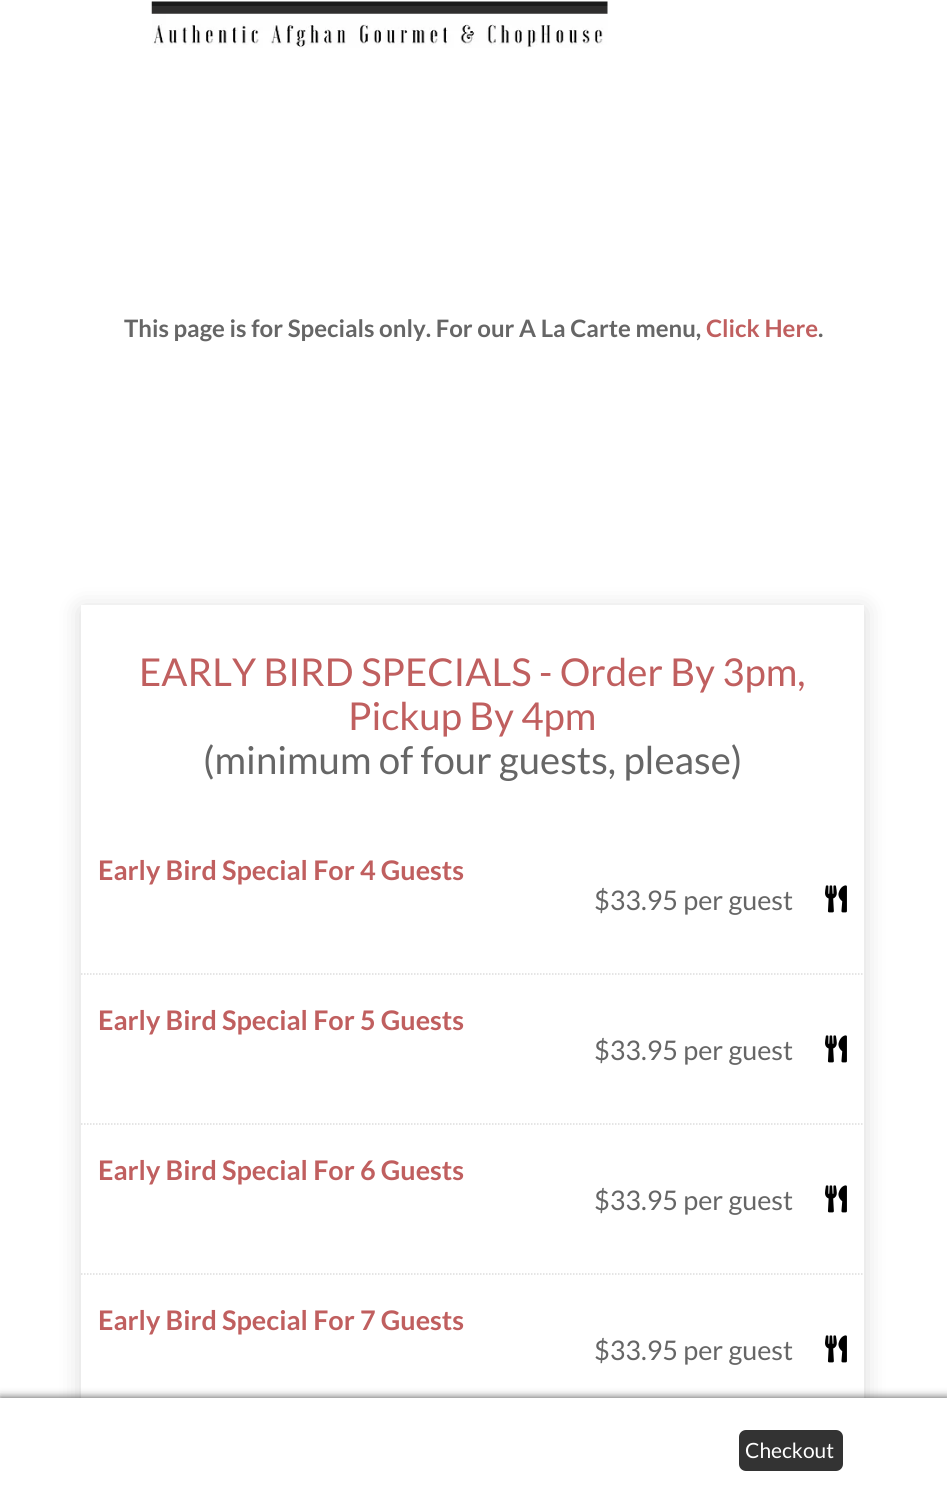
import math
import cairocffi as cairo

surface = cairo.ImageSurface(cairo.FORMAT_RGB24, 947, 1501)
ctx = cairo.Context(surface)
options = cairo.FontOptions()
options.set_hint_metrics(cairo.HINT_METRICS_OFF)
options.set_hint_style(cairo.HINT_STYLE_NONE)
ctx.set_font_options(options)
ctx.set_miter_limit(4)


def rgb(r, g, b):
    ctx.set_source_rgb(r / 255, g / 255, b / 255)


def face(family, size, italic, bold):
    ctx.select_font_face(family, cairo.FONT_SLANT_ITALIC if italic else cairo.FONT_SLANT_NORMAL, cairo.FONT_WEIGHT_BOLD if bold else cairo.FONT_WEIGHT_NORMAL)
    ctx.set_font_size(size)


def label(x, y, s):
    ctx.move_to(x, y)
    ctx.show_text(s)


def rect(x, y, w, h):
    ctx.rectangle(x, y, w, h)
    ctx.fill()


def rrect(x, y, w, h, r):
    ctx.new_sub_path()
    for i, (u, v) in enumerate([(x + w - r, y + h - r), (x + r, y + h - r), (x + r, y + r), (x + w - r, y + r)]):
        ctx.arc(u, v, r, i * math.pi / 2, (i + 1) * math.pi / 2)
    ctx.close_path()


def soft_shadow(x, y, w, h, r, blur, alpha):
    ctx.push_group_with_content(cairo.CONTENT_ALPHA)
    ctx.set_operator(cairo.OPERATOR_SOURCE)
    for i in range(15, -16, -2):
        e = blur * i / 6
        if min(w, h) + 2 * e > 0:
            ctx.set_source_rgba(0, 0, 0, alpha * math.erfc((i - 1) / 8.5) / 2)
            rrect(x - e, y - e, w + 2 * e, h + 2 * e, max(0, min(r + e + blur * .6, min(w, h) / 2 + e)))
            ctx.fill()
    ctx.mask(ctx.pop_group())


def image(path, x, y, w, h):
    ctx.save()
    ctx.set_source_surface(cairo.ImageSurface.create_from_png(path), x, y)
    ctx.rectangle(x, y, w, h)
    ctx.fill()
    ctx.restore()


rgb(255, 255, 255)
ctx.paint()
image('image0.png', 151, 1, 457, 47)
face('Lato', 24, 0, 1)
rgb(102, 102, 102)
label(124, 337, 'This page is for Specials only. For our A La Carte menu,')
rgb(192, 95, 95)
label(706, 337, 'Click Here')
rgb(102, 102, 102)
label(818, 337, '.')
ctx.save()
ctx.set_fill_rule(cairo.FILL_RULE_EVEN_ODD)
ctx.new_path()
ctx.move_to(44, 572)
ctx.line_to(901, 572)
ctx.line_to(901, 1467)
ctx.line_to(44, 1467)
ctx.close_path()
ctx.move_to(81, 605)
ctx.line_to(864, 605)
ctx.line_to(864, 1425)
ctx.line_to(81, 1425)
ctx.close_path()
ctx.clip()
rgb(0, 0, 0)
soft_shadow(81, 609, 783, 821, 0, 12, 0.15)
ctx.restore()
face('Lato', 38.4, 0, 0)
rgb(192, 95, 95)
label(139, 686, 'EARLY BIRD SPECIALS - Order By 3pm,')
label(348, 730, 'Pickup By 4pm')
rgb(102, 102, 102)
label(203, 774, '(minimum of four guests, please)')
ctx.new_path()
ctx.move_to(81, 974)
ctx.line_to(864, 974)
rgb(221, 221, 221)
ctx.set_line_width(1.5)
ctx.set_dash([1.5, 1.5])
ctx.stroke()
face('Lato', 27, 0, 1)
rgb(192, 95, 95)
label(98, 880, 'Early Bird Special For 4 Guests')
face('Lato', 27, 0, 0)
rgb(102, 102, 102)
label(594, 910, '$33.95 per guest')
image('image1.png', 825, 885, 22, 28)
ctx.new_path()
ctx.move_to(81, 1124)
ctx.line_to(864, 1124)
rgb(221, 221, 221)
ctx.stroke()
face('Lato', 27, 0, 1)
rgb(192, 95, 95)
label(98, 1030, 'Early Bird Special For 5 Guests')
face('Lato', 27, 0, 0)
rgb(102, 102, 102)
label(594, 1060, '$33.95 per guest')
image('image1.png', 825, 1035, 22, 28)
ctx.new_path()
ctx.move_to(81, 1274)
ctx.line_to(864, 1274)
rgb(221, 221, 221)
ctx.stroke()
face('Lato', 27, 0, 1)
rgb(192, 95, 95)
label(98, 1180, 'Early Bird Special For 6 Guests')
face('Lato', 27, 0, 0)
rgb(102, 102, 102)
label(594, 1210, '$33.95 per guest')
image('image1.png', 825, 1185, 22, 28)
face('Lato', 27, 0, 1)
rgb(192, 95, 95)
label(98, 1330, 'Early Bird Special For 7 Guests')
face('Lato', 27, 0, 0)
rgb(102, 102, 102)
label(594, 1360, '$33.95 per guest')
image('image1.png', 825, 1335, 22, 28)
rgb(0, 0, 0)
soft_shadow(0, 1398, 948, 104, 0, 4.5, 0.7)
rgb(255, 255, 255)
rect(0, 1398, 947, 103)
rgb(51, 51, 51)
rrect(738, 1429, 106, 43, 8)
ctx.fill_preserve()
rgb(255, 255, 255)
ctx.set_line_width(2)
ctx.set_dash([])
ctx.stroke()
face('Lato', 21, 0, 0)
label(745, 1458, 'Checkout')
surface.write_to_png('render.png')
